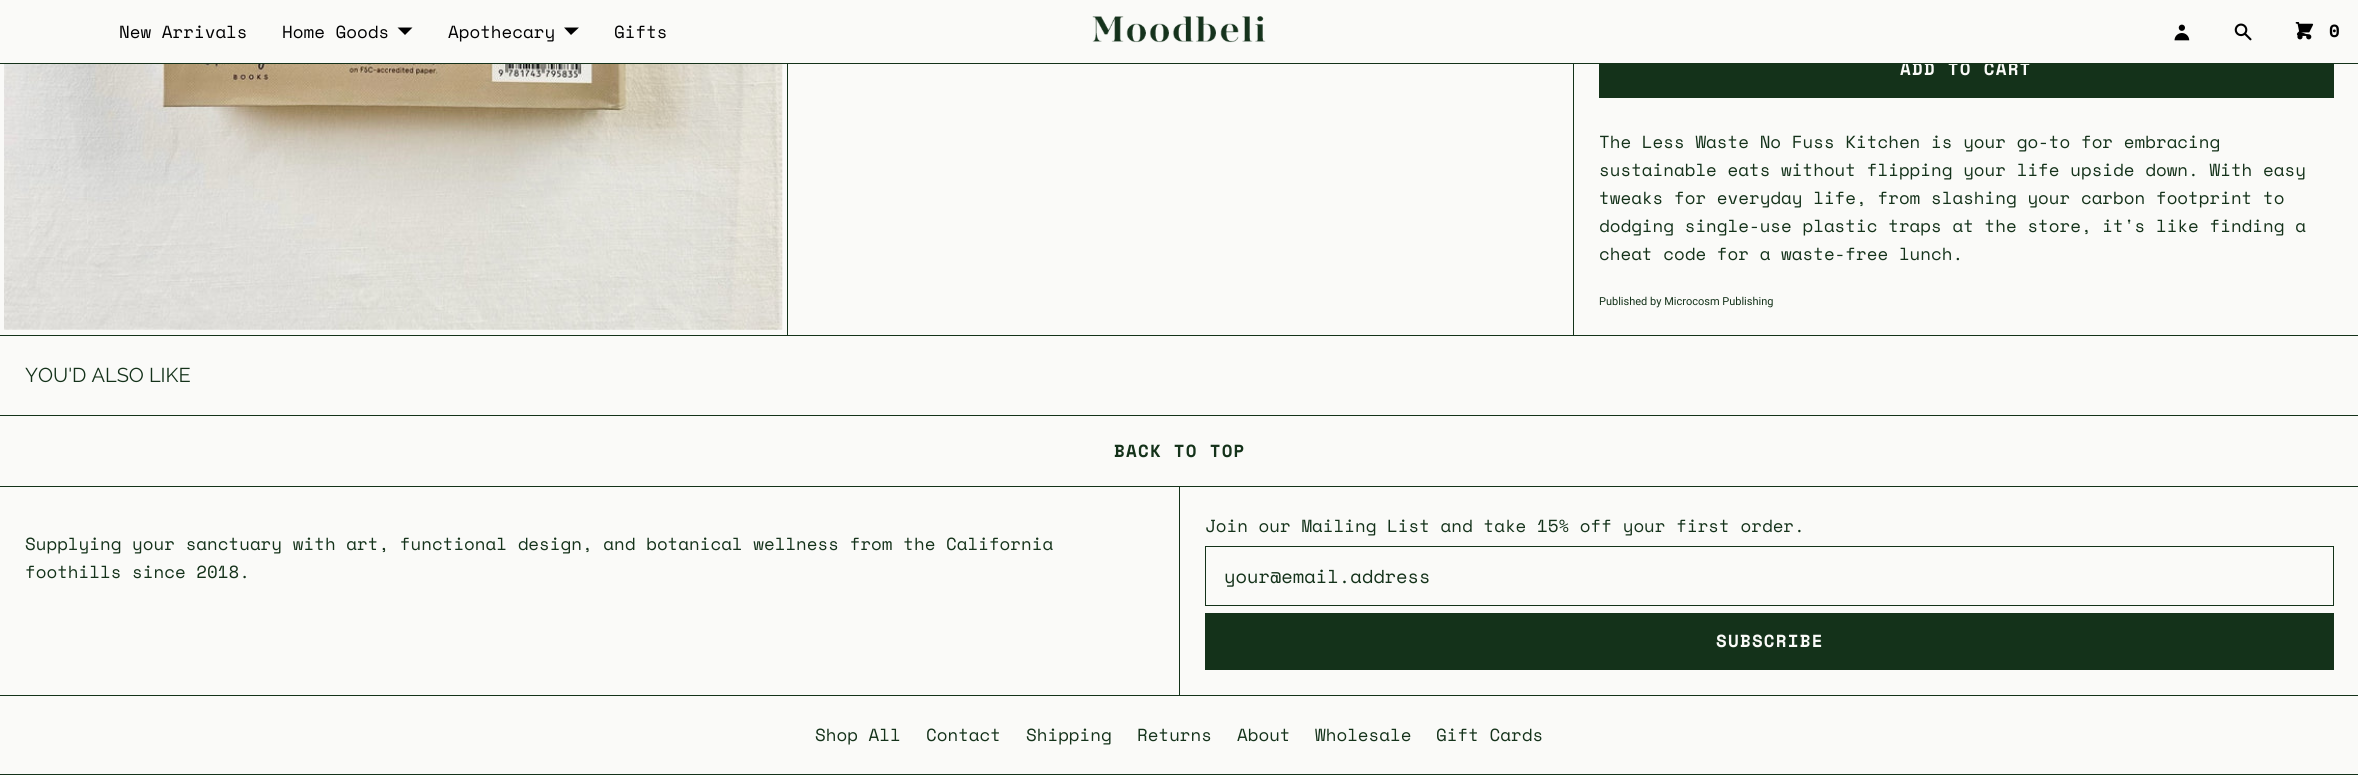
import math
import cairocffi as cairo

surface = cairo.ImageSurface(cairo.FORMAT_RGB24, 2358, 775)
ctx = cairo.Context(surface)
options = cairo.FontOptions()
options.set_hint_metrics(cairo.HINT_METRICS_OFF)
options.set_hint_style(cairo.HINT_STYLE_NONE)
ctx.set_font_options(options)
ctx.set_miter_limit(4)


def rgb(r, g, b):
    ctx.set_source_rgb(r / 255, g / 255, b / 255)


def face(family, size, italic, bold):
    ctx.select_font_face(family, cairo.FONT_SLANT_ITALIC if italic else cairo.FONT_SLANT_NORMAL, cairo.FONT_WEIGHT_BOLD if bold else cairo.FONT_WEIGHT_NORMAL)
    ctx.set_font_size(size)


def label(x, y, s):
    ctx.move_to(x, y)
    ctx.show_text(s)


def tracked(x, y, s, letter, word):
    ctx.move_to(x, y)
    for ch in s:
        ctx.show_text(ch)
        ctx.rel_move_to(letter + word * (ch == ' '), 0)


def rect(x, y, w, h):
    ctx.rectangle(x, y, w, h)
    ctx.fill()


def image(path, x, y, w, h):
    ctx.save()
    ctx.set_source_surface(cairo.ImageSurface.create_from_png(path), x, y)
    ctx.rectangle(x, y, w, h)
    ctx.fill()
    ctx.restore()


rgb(250, 250, 248)
ctx.paint()
ctx.rectangle(-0.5, -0.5, 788, 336)
rgb(20, 50, 26)
ctx.set_line_width(1)
ctx.stroke()
rgb(250, 250, 248)
rect(787, 0, 1, 63)
rgb(20, 50, 26)
rect(1599, 64, 735, 34)
face('Space Mono', 17.5, 0, 1)
rgb(250, 250, 248)
tracked(1900, 75, 'ADD TO CART', 1.25, 0)
rgb(20, 50, 26)
rect(0, 63, 2358, 1)
face('Space Mono', 17.5, 0, 0)
rgb(0, 0, 1)
label(119, 38, 'New Arrivals')
label(282, 38, 'Home Goods')
ctx.new_path()
ctx.move_to(397.5, 27.5)
ctx.line_to(412.5, 27.5)
ctx.line_to(405, 35)
ctx.close_path()
ctx.fill()
label(448, 38, 'Apothecary')
ctx.new_path()
ctx.move_to(564, 27.5)
ctx.line_to(579, 27.5)
ctx.line_to(571, 35)
ctx.close_path()
ctx.fill()
label(614, 38, 'Gifts')
image('image0.png', 1092, 16, 174, 27)
image('image1.png', 2174, 24, 16, 17)
image('image2.png', 2234, 23, 18, 18)
image('image3.png', 2295, 22, 19, 18)
face('Space Mono', 17.5, 0, 1)
tracked(2329, 37, '0', 1.25, 0)
rgb(20, 50, 26)
rect(788, 335, 1570, 1)
image('image4.png', 4, 64, 779, 266)
rect(1573, 64, 1, 271)
face('Space Mono', 17.5, 0, 0)
label(1599, 148, 'The Less Waste No Fuss Kitchen is your go-to for embracing')
label(1599, 176, 'sustainable eats without flipping your life upside down. With easy')
label(1599, 204, 'tweaks for everyday life, from slashing your carbon footprint to')
label(1599, 232, 'dodging single-use plastic traps at the store, it\'s like finding a')
label(1599, 260, 'cheat code for a waste-free lunch.')
face('Roboto', 11, 0, 0)
label(1599, 305, 'Published by Microcosm Publishing')
rect(0, 415, 2358, 1)
face('Raleway', 20, 0, 0)
label(25, 382, 'YOU\'D ALSO LIKE')
face('Space Mono', 17.5, 0, 1)
tracked(1114, 457, 'BACK TO TOP', 1.25, 0)
rect(0, 774, 2358, 1)
ctx.rectangle(-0.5, 486.5, 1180, 209)
ctx.stroke()
face('Space Mono', 17.5, 0, 0)
label(25, 550, 'Supplying your sanctuary with art, functional design, and botanical wellness from the California')
label(25, 578, 'foothills since 2018.')
ctx.rectangle(1205.5, 546.5, 1128, 59)
ctx.stroke()
rect(1205, 613, 1129, 57)
ctx.rectangle(1179.5, 486.5, 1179, 209)
ctx.stroke()
label(1205, 532, 'Join our Mailing List and take 15% off your first order.')
face('Space Mono', 18.75, 0, 0)
label(1224, 583, 'your@email.address')
face('Space Mono', 17.5, 0, 1)
rgb(250, 250, 248)
tracked(1716, 647, 'SUBSCRIBE', 1.25, 0)
face('Space Mono', 17.5, 0, 0)
rgb(20, 50, 26)
label(815, 741, 'Shop All')
label(926, 741, 'Contact')
label(1026, 741, 'Shipping')
label(1137, 741, 'Returns')
label(1237, 741, 'About')
label(1315, 741, 'Wholesale')
label(1436, 741, 'Gift Cards')
surface.write_to_png('render.png')
